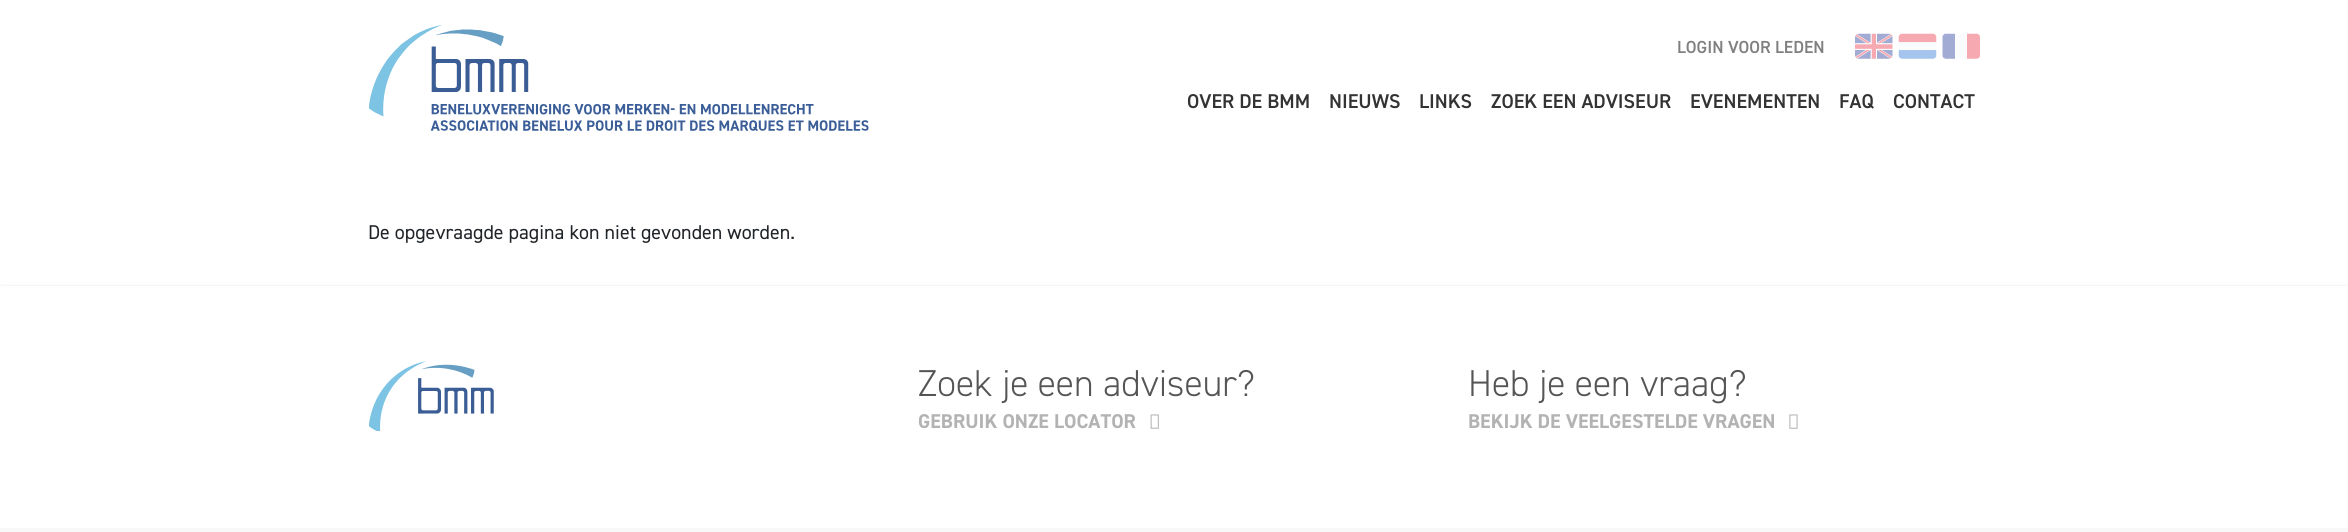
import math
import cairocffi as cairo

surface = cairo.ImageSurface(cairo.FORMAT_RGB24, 2348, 532)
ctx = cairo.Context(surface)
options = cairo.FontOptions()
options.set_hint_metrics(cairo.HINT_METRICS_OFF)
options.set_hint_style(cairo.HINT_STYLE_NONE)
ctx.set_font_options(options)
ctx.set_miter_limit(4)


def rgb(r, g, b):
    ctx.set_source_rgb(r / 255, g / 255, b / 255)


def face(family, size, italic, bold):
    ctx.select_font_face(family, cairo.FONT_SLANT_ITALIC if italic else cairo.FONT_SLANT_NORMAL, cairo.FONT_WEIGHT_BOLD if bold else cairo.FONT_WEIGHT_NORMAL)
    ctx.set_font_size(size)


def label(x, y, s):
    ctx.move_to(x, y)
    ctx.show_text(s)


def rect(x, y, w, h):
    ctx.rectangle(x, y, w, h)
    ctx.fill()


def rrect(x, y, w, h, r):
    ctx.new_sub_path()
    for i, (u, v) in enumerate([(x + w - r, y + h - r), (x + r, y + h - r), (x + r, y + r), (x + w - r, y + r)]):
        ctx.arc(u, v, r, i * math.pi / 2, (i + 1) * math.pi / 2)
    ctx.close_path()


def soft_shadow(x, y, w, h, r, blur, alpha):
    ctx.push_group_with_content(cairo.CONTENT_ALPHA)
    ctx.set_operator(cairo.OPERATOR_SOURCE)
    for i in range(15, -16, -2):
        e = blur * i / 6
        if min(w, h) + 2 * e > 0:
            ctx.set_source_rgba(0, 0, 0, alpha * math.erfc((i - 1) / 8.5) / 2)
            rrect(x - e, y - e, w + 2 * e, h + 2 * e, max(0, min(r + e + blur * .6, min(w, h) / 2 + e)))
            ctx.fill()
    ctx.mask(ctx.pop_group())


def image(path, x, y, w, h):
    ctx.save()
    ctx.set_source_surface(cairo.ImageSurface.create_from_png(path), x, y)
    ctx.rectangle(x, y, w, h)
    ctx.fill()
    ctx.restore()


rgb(255, 255, 255)
ctx.paint()
image('image0.png', 369, 25, 500, 106)
face('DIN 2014 SemiBold', 17.5, 0, 0)
rgb(128, 128, 128)
label(1677, 53, 'LOGIN VOOR LEDEN')
image('image1.png', 1855, 33, 38, 26)
image('image2.png', 1898, 33, 39, 26)
image('image3.png', 1942, 33, 38, 26)
face('DIN 2014 SemiBold', 20, 0, 0)
rgb(51, 51, 51)
label(1187, 108, 'OVER DE BMM')
label(1329, 108, 'NIEUWS')
label(1419, 108, 'LINKS')
label(1491, 108, 'ZOEK EEN ADVISEUR')
label(1690, 108, 'EVENEMENTEN')
label(1839, 108, 'FAQ')
label(1893, 108, 'CONTACT')
face('DIN 2014', 20, 0, 0)
rgb(33, 37, 41)
label(368, 239, 'De opgevraagde pagina kon niet gevonden worden.')
rgb(0, 0, 0)
soft_shadow(0, 285, 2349, 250, 0, 1, 0.05)
rgb(255, 255, 255)
rect(0, 286, 2348, 242)
image('image4.png', 369, 361, 125, 70)
face('DIN 2014 Light', 37.5, 0, 0)
rgb(85, 85, 85)
label(918, 396, 'Zoek je een adviseur?')
face('DIN 2014', 20, 0, 1)
rgb(179, 179, 179)
label(918, 428, 'GEBRUIK ONZE LOCATOR')
image('image5.png', 1150, 414, 9, 15)
face('DIN 2014 Light', 37.5, 0, 0)
rgb(85, 85, 85)
label(1468, 396, 'Heb je een vraag?')
face('DIN 2014', 20, 0, 1)
rgb(179, 179, 179)
label(1468, 428, 'BEKIJK DE VEELGESTELDE VRAGEN')
image('image6.png', 1789, 414, 9, 15)
rgb(248, 248, 248)
rect(0, 528, 2348, 4)
surface.write_to_png('render.png')
